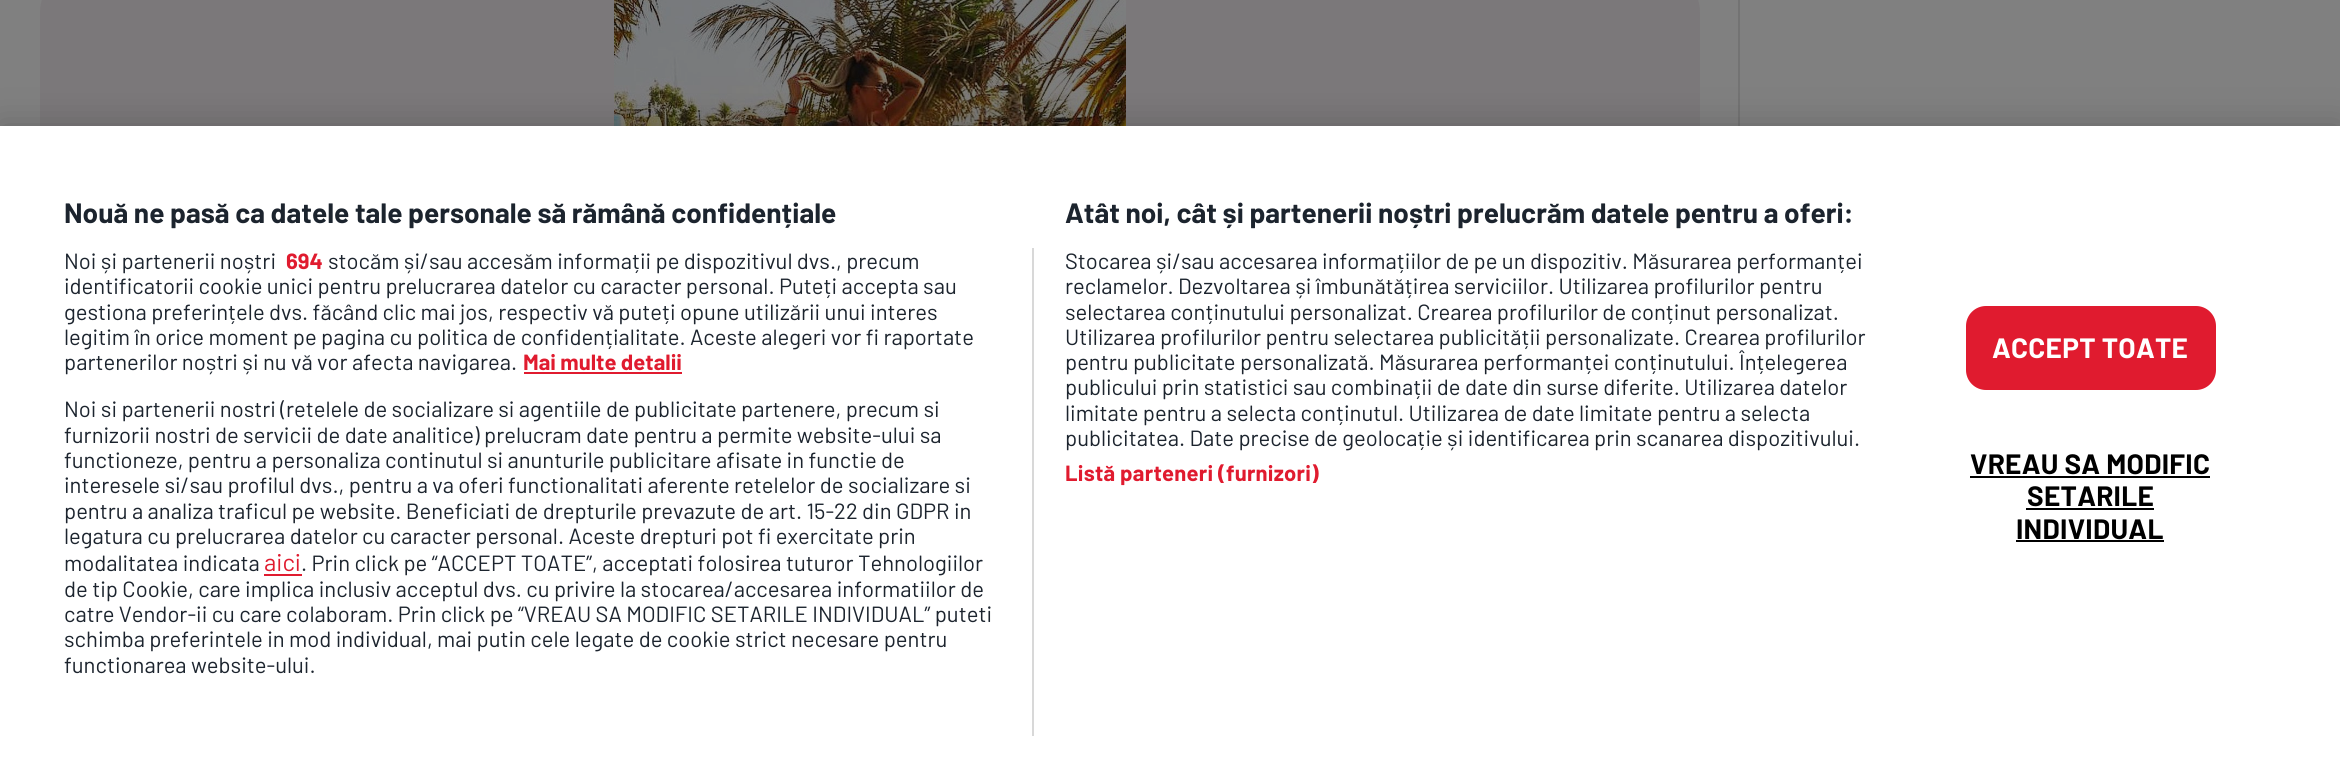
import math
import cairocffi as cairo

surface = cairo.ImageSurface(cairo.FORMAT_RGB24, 2340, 765)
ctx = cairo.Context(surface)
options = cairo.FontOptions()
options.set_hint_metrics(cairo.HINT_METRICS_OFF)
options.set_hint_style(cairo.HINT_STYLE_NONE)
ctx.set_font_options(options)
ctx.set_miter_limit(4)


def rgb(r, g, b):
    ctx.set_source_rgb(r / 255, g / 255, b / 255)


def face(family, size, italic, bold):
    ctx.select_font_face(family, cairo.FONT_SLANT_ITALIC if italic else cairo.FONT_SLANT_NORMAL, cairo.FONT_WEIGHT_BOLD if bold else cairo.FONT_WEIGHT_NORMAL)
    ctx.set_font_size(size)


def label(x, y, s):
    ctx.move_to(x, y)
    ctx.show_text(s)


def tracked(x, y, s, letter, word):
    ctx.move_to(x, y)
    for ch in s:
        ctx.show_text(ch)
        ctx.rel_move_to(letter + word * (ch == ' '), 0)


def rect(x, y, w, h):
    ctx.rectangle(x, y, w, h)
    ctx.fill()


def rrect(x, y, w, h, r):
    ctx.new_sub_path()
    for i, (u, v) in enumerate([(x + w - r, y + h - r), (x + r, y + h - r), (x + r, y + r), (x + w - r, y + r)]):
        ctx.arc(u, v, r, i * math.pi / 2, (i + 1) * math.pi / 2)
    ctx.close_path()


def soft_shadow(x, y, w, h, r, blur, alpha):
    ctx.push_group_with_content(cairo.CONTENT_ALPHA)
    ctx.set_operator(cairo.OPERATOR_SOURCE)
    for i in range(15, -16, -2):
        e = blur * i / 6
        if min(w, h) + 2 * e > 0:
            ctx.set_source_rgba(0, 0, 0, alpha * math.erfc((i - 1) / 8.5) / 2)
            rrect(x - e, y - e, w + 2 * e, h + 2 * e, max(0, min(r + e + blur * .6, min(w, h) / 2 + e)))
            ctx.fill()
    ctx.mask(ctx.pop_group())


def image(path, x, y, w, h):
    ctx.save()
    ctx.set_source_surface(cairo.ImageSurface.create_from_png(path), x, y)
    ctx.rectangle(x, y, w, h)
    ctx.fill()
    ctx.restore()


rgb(128, 128, 128)
ctx.paint()
rgb(115, 115, 115)
rect(1738, 0, 2, 126)
rgb(123, 120, 122)
rrect(40, -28, 1660, 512, 40)
ctx.fill()
image('image0.png', 614, 0, 512, 126)
rgb(0, 0, 0)
soft_shadow(0, 126, 2340, 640, 0, 18, 0.2)
rgb(255, 255, 255)
rect(0, 126, 2340, 639)
face('Barlow', 28, 0, 1)
rgb(28, 36, 46)
label(64, 223, 'Nouă ne pasă ca datele tale personale să rămână confidențiale')
label(1065, 223, 'Atât noi, cât și partenerii noștri prelucrăm datele pentru a oferi:')
face('Barlow', 22, 0, 0)
label(1065, 269, 'Stocarea și/sau accesarea informațiilor de pe un dispozitiv. Măsurarea performanței')
label(1065, 294, 'reclamelor. Dezvoltarea și îmbunătățirea serviciilor. Utilizarea profilurilor pentru')
label(1065, 320, 'selectarea conținutului personalizat. Crearea profilurilor de conținut personalizat.')
label(1065, 345, 'Utilizarea profilurilor pentru selectarea publicității personalizate. Crearea profilurilor')
label(1065, 370, 'pentru publicitate personalizată. Măsurarea performanței conținutului. Înțelegerea')
label(1065, 395, 'publicului prin statistici sau combinații de date din surse diferite. Utilizarea datelor')
label(1065, 421, 'limitate pentru a selecta conținutul. Utilizarea de date limitate pentru a selecta')
label(1065, 446, 'publicitatea. Date precise de geolocație și identificarea prin scanarea dispozitivului.')
face('Barlow', 22, 0, 1)
rgb(224, 27, 47)
tracked(1065, 481, 'Listă parteneri (furnizori)', 0.25, 0)
rgb(216, 216, 216)
rect(1032, 248, 2, 488)
face('Barlow', 22, 0, 0)
rgb(28, 36, 46)
label(64, 269, 'Noi și partenerii noștri')
face('Barlow', 22, 0, 1)
rgb(224, 27, 47)
label(286, 269, '694')
face('Barlow', 22, 0, 0)
rgb(28, 36, 46)
label(328, 269, 'stocăm și/sau accesăm informații pe dispozitivul dvs., precum')
label(64, 294, 'identificatorii cookie unici pentru prelucrarea datelor cu caracter personal. Puteți accepta sau')
label(64, 320, 'gestiona preferințele dvs. făcând clic mai jos, respectiv vă puteți opune utilizării unui interes')
label(64, 345, 'legitim în orice moment pe pagina cu politica de confidențialitate. Aceste alegeri vor fi raportate')
label(64, 370, 'partenerilor noștri și nu vă vor afecta navigarea.')
face('Barlow', 22, 0, 1)
rgb(224, 27, 47)
label(523, 370, 'Mai multe detalii')
rect(524, 372, 158, 2)
face('Barlow', 22, 0, 0)
rgb(28, 36, 46)
label(64, 417, 'Noi si partenerii nostri (retelele de socializare si agentiile de publicitate partenere, precum si')
label(64, 443, 'furnizorii nostri de servicii de date analitice) prelucram date pentru a permite website-ului sa')
label(64, 468, 'functioneze, pentru a personaliza continutul si anunturile publicitare afisate in functie de')
label(64, 493, 'interesele si/sau profilul dvs., pentru a va oferi functionalitati aferente retelelor de socializare si')
label(64, 519, 'pentru a analiza traficul pe website. Beneficiati de drepturile prevazute de art. 15-22 din GDPR in')
label(64, 544, 'legatura cu prelucrarea datelor cu caracter personal. Aceste drepturi pot fi exercitate prin')
label(64, 571, 'modalitatea indicata')
face('Barlow', 24, 0, 0)
rgb(224, 27, 47)
label(264, 571, 'aici')
rect(264, 574, 38, 2)
face('Barlow', 22, 0, 0)
rgb(28, 36, 46)
label(301, 571, '. Prin click pe “ACCEPT TOATE”, acceptati folosirea tuturor Tehnologiilor')
label(64, 597, 'de tip Cookie, care implica inclusiv acceptul dvs. cu privire la stocarea/accesarea informatiilor de')
label(64, 622, 'catre Vendor-ii cu care colaboram. Prin click pe “VREAU SA MODIFIC SETARILE INDIVIDUAL” puteti')
label(64, 647, 'schimba preferintele in mod individual, mai putin cele legate de cookie strict necesare pentru')
label(64, 673, 'functionarea website-ului.')
rgb(224, 27, 47)
rrect(1967, 307, 248, 82, 19)
ctx.fill_preserve()
ctx.stroke()
face('Barlow', 28, 0, 1)
rgb(255, 255, 255)
tracked(1992, 358, 'ACCEPT TOATE', 0.25, 0)
rgb(0, 0, 0)
tracked(1970, 474, 'VREAU SA MODIFIC', 0.25, 0)
rect(1970, 476, 240, 2)
tracked(2027, 506, 'SETARILE', 0.25, 0)
rect(2026, 508, 128, 2)
tracked(2016, 539, 'INDIVIDUAL', 0.25, 0)
rect(2016, 540, 148, 2)
surface.write_to_png('render.png')
